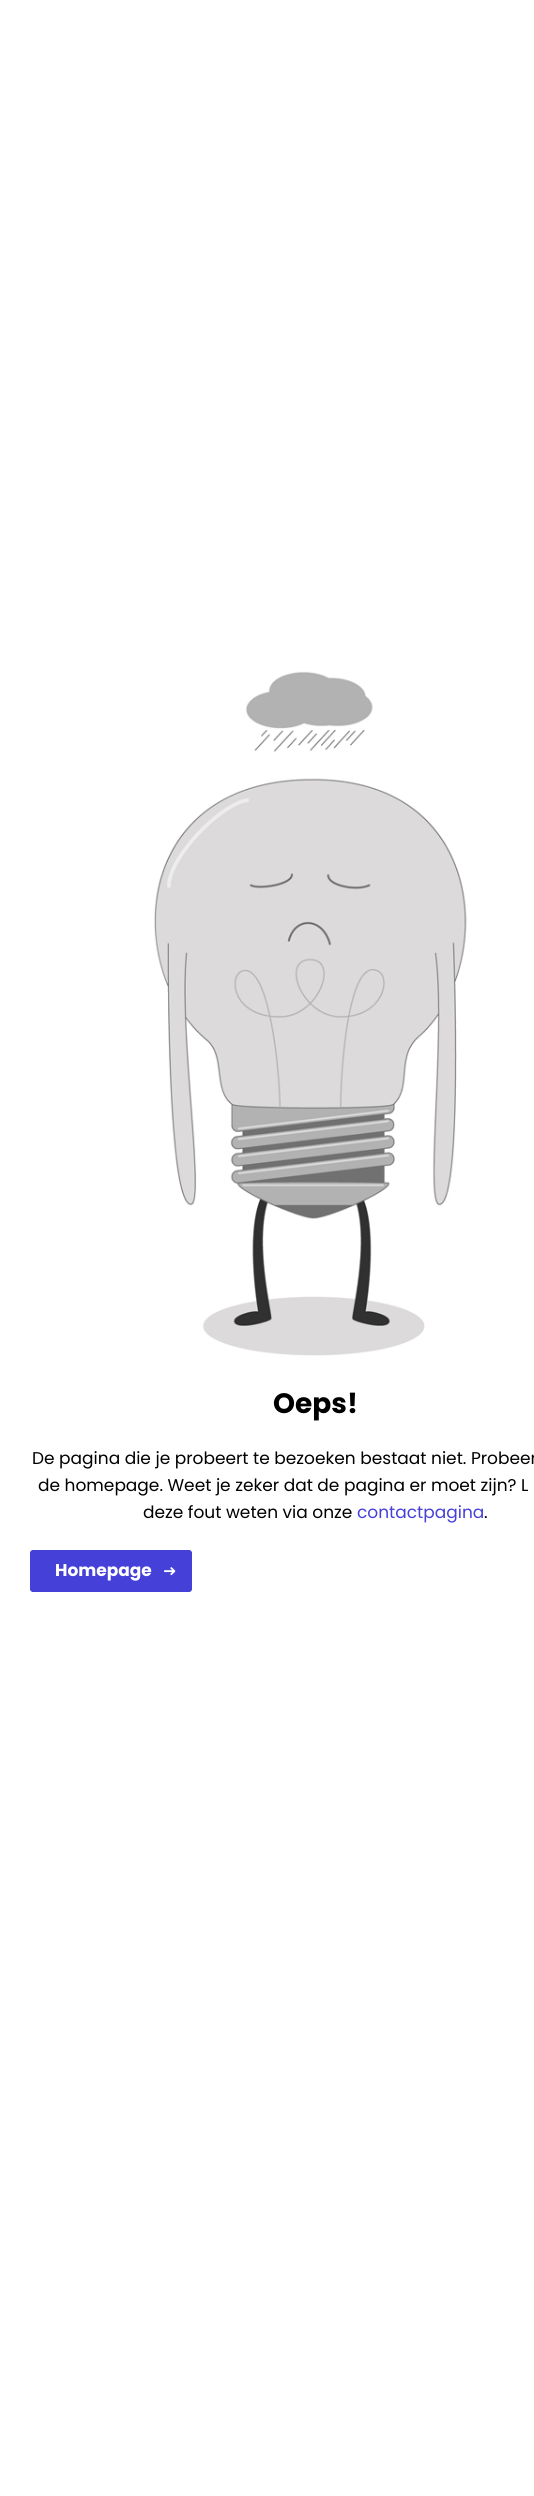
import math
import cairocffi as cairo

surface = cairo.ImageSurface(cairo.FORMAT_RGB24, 534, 2496)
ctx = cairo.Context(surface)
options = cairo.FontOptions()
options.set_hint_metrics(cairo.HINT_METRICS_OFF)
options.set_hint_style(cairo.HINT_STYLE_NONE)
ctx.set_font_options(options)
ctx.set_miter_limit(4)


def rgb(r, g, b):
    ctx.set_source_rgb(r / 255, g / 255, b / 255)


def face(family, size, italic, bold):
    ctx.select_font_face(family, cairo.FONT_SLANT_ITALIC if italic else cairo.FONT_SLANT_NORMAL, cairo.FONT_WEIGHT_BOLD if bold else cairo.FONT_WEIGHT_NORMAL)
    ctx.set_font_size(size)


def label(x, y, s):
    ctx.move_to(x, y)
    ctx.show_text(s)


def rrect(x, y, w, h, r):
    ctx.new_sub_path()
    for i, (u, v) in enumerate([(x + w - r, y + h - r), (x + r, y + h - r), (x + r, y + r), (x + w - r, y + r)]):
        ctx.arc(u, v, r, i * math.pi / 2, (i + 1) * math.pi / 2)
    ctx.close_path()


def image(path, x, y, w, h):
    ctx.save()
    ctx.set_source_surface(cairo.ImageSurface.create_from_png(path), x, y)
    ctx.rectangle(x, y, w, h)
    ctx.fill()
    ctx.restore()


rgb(255, 255, 255)
ctx.paint()
image('image0.png', 154, 671, 313, 685)
face('Poppins', 28, 0, 1)
rgb(0, 0, 0)
label(273, 1413, 'Oeps!')
face('Poppins', 17, 0, 0)
label(32, 1464, 'De pagina die je probeert te bezoeken bestaat niet. Probeer')
label(38, 1491, 'de homepage. Weet je zeker dat de pagina er moet zijn? L')
label(143, 1518, 'deze fout weten via onze')
rgb(69, 64, 216)
label(357, 1518, 'contactpagina')
rgb(0, 0, 0)
label(484, 1518, '.')
rgb(69, 64, 216)
rrect(30.5, 1550.5, 161, 41, 2.5)
ctx.fill_preserve()
ctx.set_line_width(1)
ctx.stroke()
face('Poppins', 17, 0, 1)
rgb(255, 255, 255)
label(55, 1576, 'Homepage')
image('image1.png', 164, 1567, 12, 9)
surface.write_to_png('render.png')
